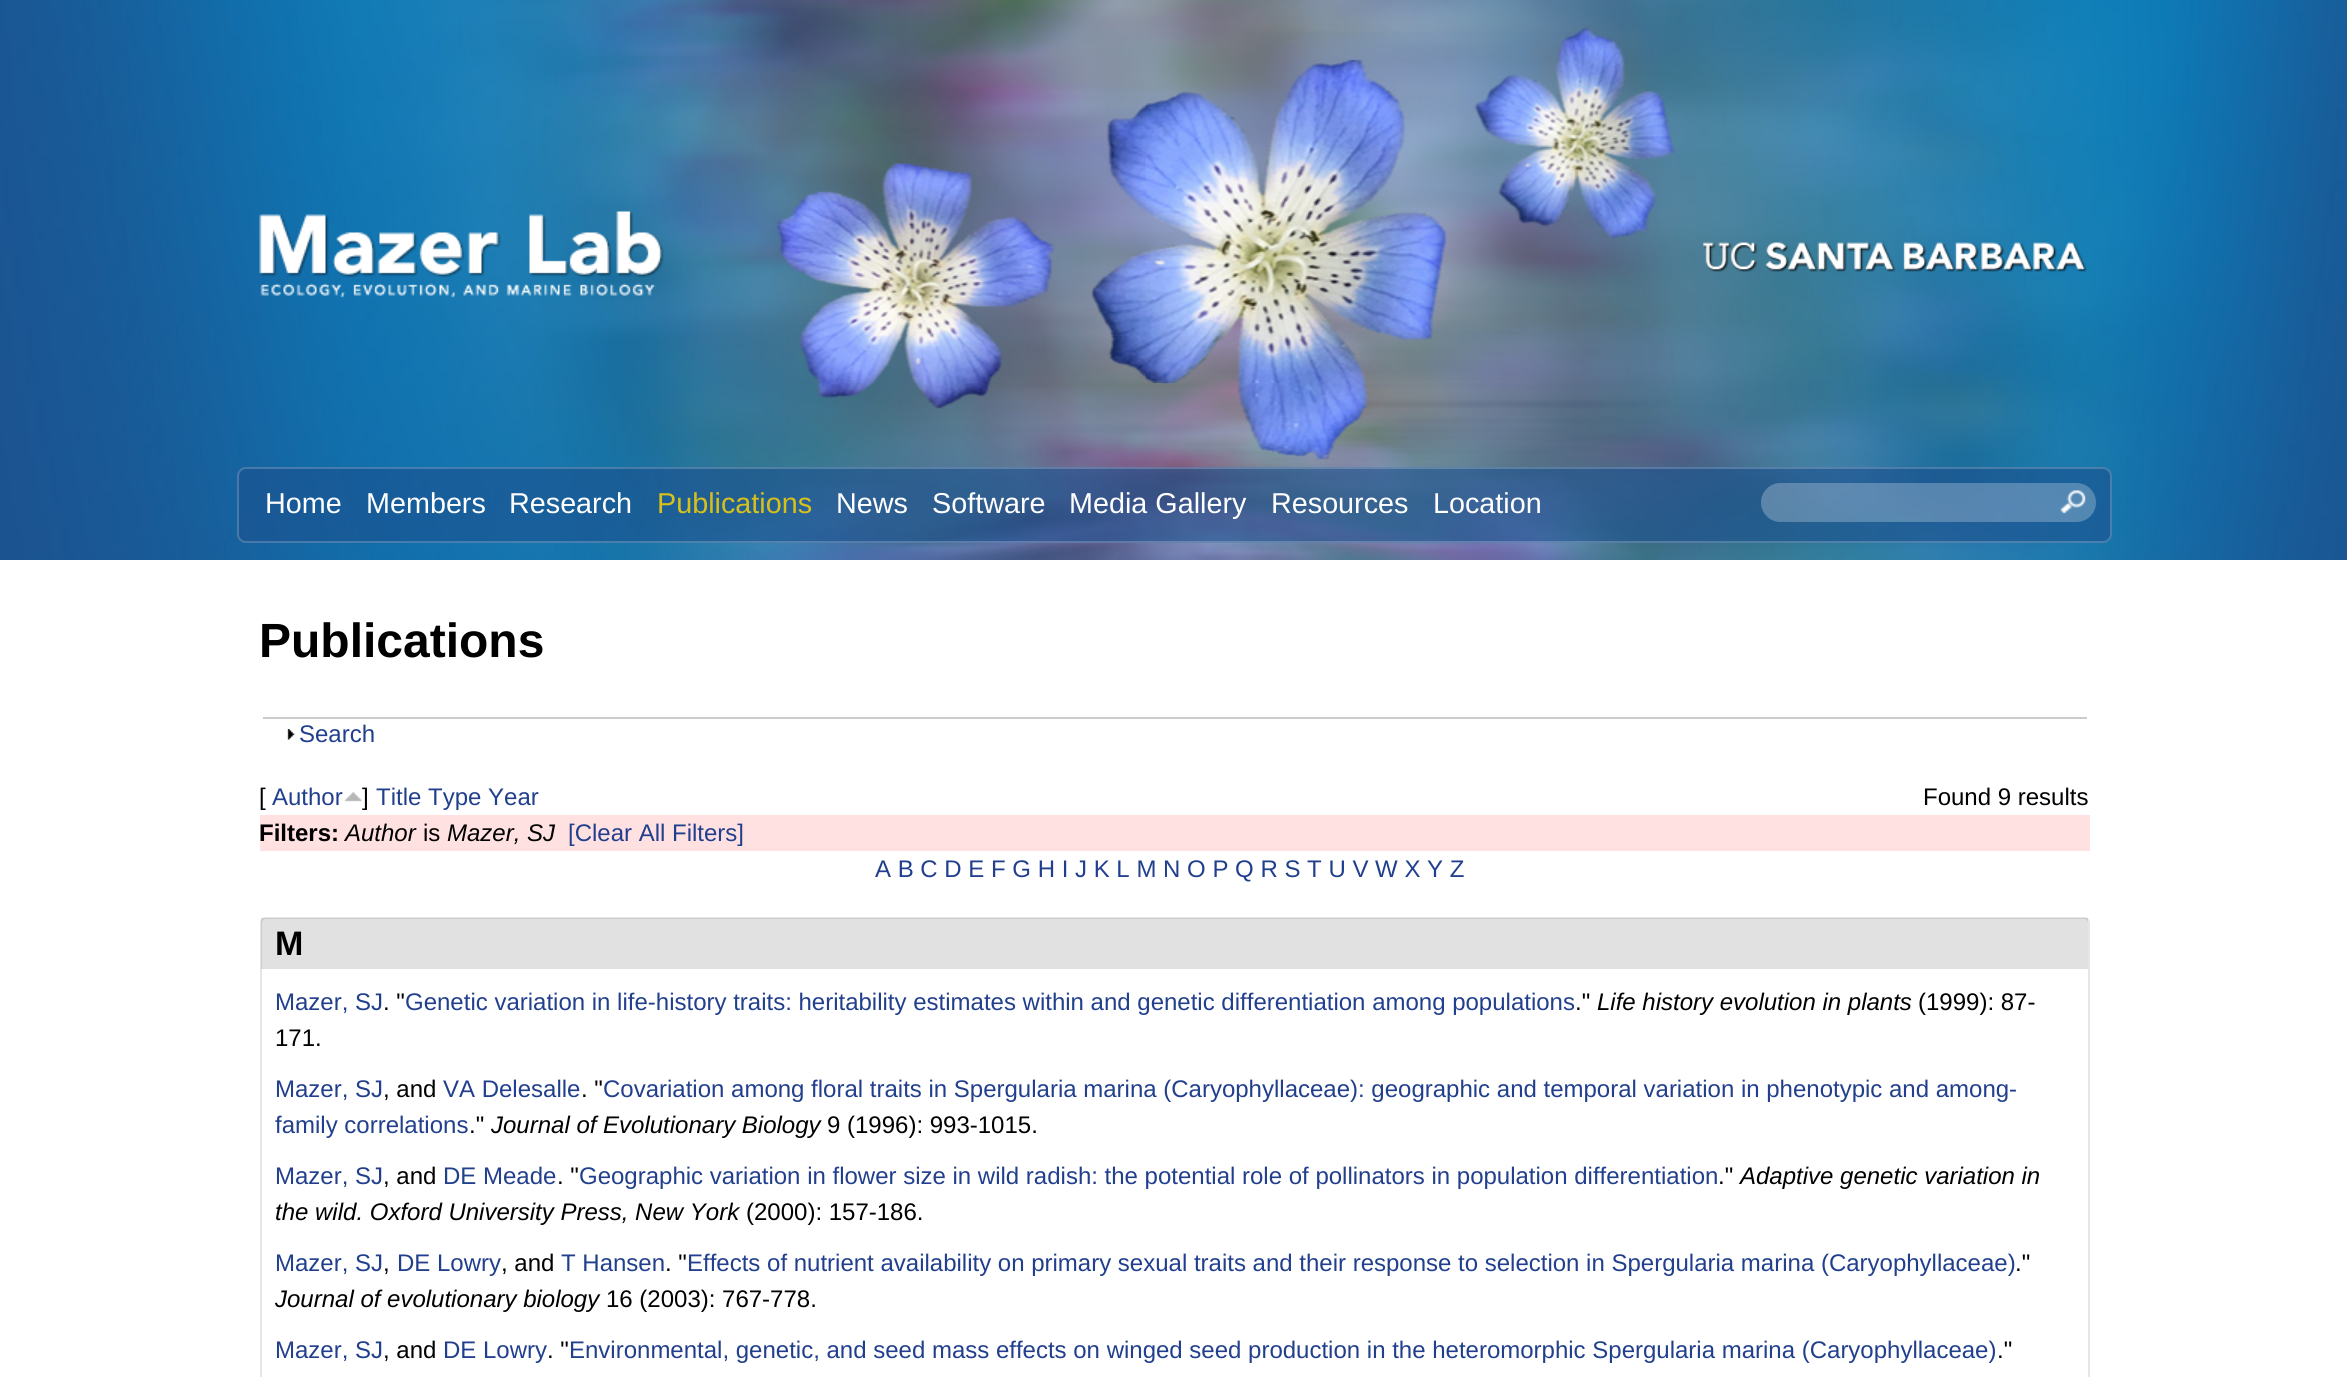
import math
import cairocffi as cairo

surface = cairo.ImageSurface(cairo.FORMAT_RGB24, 2347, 1377)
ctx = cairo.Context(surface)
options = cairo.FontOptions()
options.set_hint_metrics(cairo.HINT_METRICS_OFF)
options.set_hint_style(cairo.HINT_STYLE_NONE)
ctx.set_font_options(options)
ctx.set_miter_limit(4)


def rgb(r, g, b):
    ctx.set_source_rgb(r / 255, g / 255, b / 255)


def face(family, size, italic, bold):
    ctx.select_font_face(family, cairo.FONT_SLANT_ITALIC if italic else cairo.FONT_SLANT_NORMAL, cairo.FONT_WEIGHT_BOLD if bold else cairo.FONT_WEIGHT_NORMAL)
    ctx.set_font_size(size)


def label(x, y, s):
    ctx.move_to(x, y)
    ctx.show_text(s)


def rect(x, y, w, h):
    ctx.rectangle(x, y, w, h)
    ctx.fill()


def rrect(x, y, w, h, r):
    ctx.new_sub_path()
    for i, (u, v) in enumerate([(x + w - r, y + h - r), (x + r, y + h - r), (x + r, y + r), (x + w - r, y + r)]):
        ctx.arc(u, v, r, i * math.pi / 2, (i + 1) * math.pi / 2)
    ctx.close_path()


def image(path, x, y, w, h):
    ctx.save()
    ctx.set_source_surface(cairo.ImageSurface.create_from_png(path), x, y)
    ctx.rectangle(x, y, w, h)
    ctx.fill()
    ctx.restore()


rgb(255, 255, 255)
ctx.paint()
image('image0.png', 0, 0, 2347, 560)
image('image1.png', 259, 211, 405, 87)
image('image2.png', 1703, 242, 384, 30)
ctx.set_source_rgba(0.11, 0.318, 0.557, 0.6)
rrect(237, 467, 1875, 76, 9)
ctx.fill()
rrect(238, 468, 1873, 74, 8)
ctx.set_source_rgba(1, 1, 1, 0.2)
ctx.stroke()
face('Liberation Sans', 28.75, 0, 0)
rgb(255, 255, 255)
label(265, 513, 'Home')
label(366, 513, 'Members')
label(509, 513, 'Research')
rgb(216, 192, 27)
label(657, 513, 'Publications')
rgb(255, 255, 255)
label(836, 513, 'News')
label(932, 513, 'Software')
label(1069, 513, 'Media Gallery')
label(1271, 513, 'Resources')
label(1433, 513, 'Location')
ctx.set_source_rgba(1, 1, 1, 0.25)
rrect(1761, 483, 335, 39, 19.5)
ctx.fill()
image('image3.png', 2060, 490, 26, 24)
face('Liberation Sans', 48, 0, 1)
rgb(0, 0, 0)
label(259, 657, 'Publications')
rgb(204, 204, 204)
rect(263, 717, 1824, 2)
image('image4.png', 287, 729, 8, 11)
face('Liberation Sans', 24, 0, 0)
rgb(33, 63, 141)
label(299, 742, 'Search')
rgb(0, 0, 0)
label(259, 805, '[')
rgb(33, 63, 141)
label(272, 805, 'Author')
image('image5.png', 344, 791, 18, 11)
rgb(0, 0, 0)
label(362, 805, ']')
rgb(33, 63, 141)
label(376, 805, 'Title Type Year')
rgb(0, 0, 0)
label(1923, 805, 'Found 9 results')
rgb(255, 225, 225)
rect(260, 815, 1830, 36)
face('Liberation Sans', 24, 0, 1)
rgb(0, 0, 0)
label(259, 841, 'Filters:')
face('Liberation Sans', 24, 1, 0)
label(345, 841, 'Author')
face('Liberation Sans', 24, 0, 0)
label(423, 841, 'is')
face('Liberation Sans', 24, 1, 0)
label(447, 841, 'Mazer, SJ')
face('Liberation Sans', 24, 0, 0)
rgb(33, 63, 141)
label(568, 841, '[Clear All Filters]')
label(875, 877, 'A B C D E F G H I J K L M N O P Q R S T U V W X Y Z')
rrect(261, 918, 1828, 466, 5)
rgb(230, 230, 230)
ctx.stroke()
ctx.set_source_rgba(0, 0, 0, 0.12)
rect(261, 918, 1827, 51)
face('Liberation Sans', 34, 0, 1)
rgb(0, 0, 0)
label(275, 955, 'M')
face('Liberation Sans', 24, 0, 0)
rgb(33, 63, 141)
label(275, 1010, 'Mazer, SJ')
rgb(0, 0, 0)
label(383, 1010, '. "')
rgb(33, 63, 141)
label(405, 1010, 'Genetic variation in life-history traits: heritability estimates within and genetic differentiation among populations')
rgb(0, 0, 0)
label(1575, 1010, '."')
face('Liberation Sans', 24, 1, 0)
label(1597, 1010, 'Life history evolution in plants')
face('Liberation Sans', 24, 0, 0)
label(1918, 1010, '(1999): 87-')
label(275, 1046, '171.')
rgb(33, 63, 141)
label(275, 1097, 'Mazer, SJ')
rgb(0, 0, 0)
label(383, 1097, ', and')
rgb(33, 63, 141)
label(443, 1097, 'VA Delesalle')
rgb(0, 0, 0)
label(581, 1097, '. "')
rgb(33, 63, 141)
label(603, 1097, 'Covariation among floral traits in Spergularia marina (Caryophyllaceae): geographic and temporal variation in phenotypic and among-')
label(275, 1133, 'family correlations')
rgb(0, 0, 0)
label(469, 1133, '."')
face('Liberation Sans', 24, 1, 0)
label(491, 1133, 'Journal of Evolutionary Biology')
face('Liberation Sans', 24, 0, 0)
label(827, 1133, '9 (1996): 993-1015.')
rgb(33, 63, 141)
label(275, 1184, 'Mazer, SJ')
rgb(0, 0, 0)
label(383, 1184, ', and')
rgb(33, 63, 141)
label(443, 1184, 'DE Meade')
rgb(0, 0, 0)
label(557, 1184, '. "')
rgb(33, 63, 141)
label(579, 1184, 'Geographic variation in flower size in wild radish: the potential role of pollinators in population differentiation')
rgb(0, 0, 0)
label(1718, 1184, '."')
face('Liberation Sans', 24, 1, 0)
label(1740, 1184, 'Adaptive genetic variation in')
label(275, 1220, 'the wild. Oxford University Press, New York')
face('Liberation Sans', 24, 0, 0)
label(746, 1220, '(2000): 157-186.')
rgb(33, 63, 141)
label(275, 1271, 'Mazer, SJ')
rgb(0, 0, 0)
label(383, 1271, ',')
rgb(33, 63, 141)
label(397, 1271, 'DE Lowry')
rgb(0, 0, 0)
label(501, 1271, ', and')
rgb(33, 63, 141)
label(561, 1271, 'T Hansen')
rgb(0, 0, 0)
label(665, 1271, '. "')
rgb(33, 63, 141)
label(687, 1271, 'Effects of nutrient availability on primary sexual traits and their response to selection in Spergularia marina (Caryophyllaceae)')
rgb(0, 0, 0)
label(2015, 1271, '."')
face('Liberation Sans', 24, 1, 0)
label(275, 1307, 'Journal of evolutionary biology')
face('Liberation Sans', 24, 0, 0)
label(606, 1307, '16 (2003): 767-778.')
rgb(33, 63, 141)
label(275, 1358, 'Mazer, SJ')
rgb(0, 0, 0)
label(383, 1358, ', and')
rgb(33, 63, 141)
label(443, 1358, 'DE Lowry')
rgb(0, 0, 0)
label(547, 1358, '. "')
rgb(33, 63, 141)
label(569, 1358, 'Environmental, genetic, and seed mass effects on winged seed production in the heteromorphic Spergularia marina (Caryophyllaceae)')
rgb(0, 0, 0)
label(1997, 1358, '."')
surface.write_to_png('render.png')
